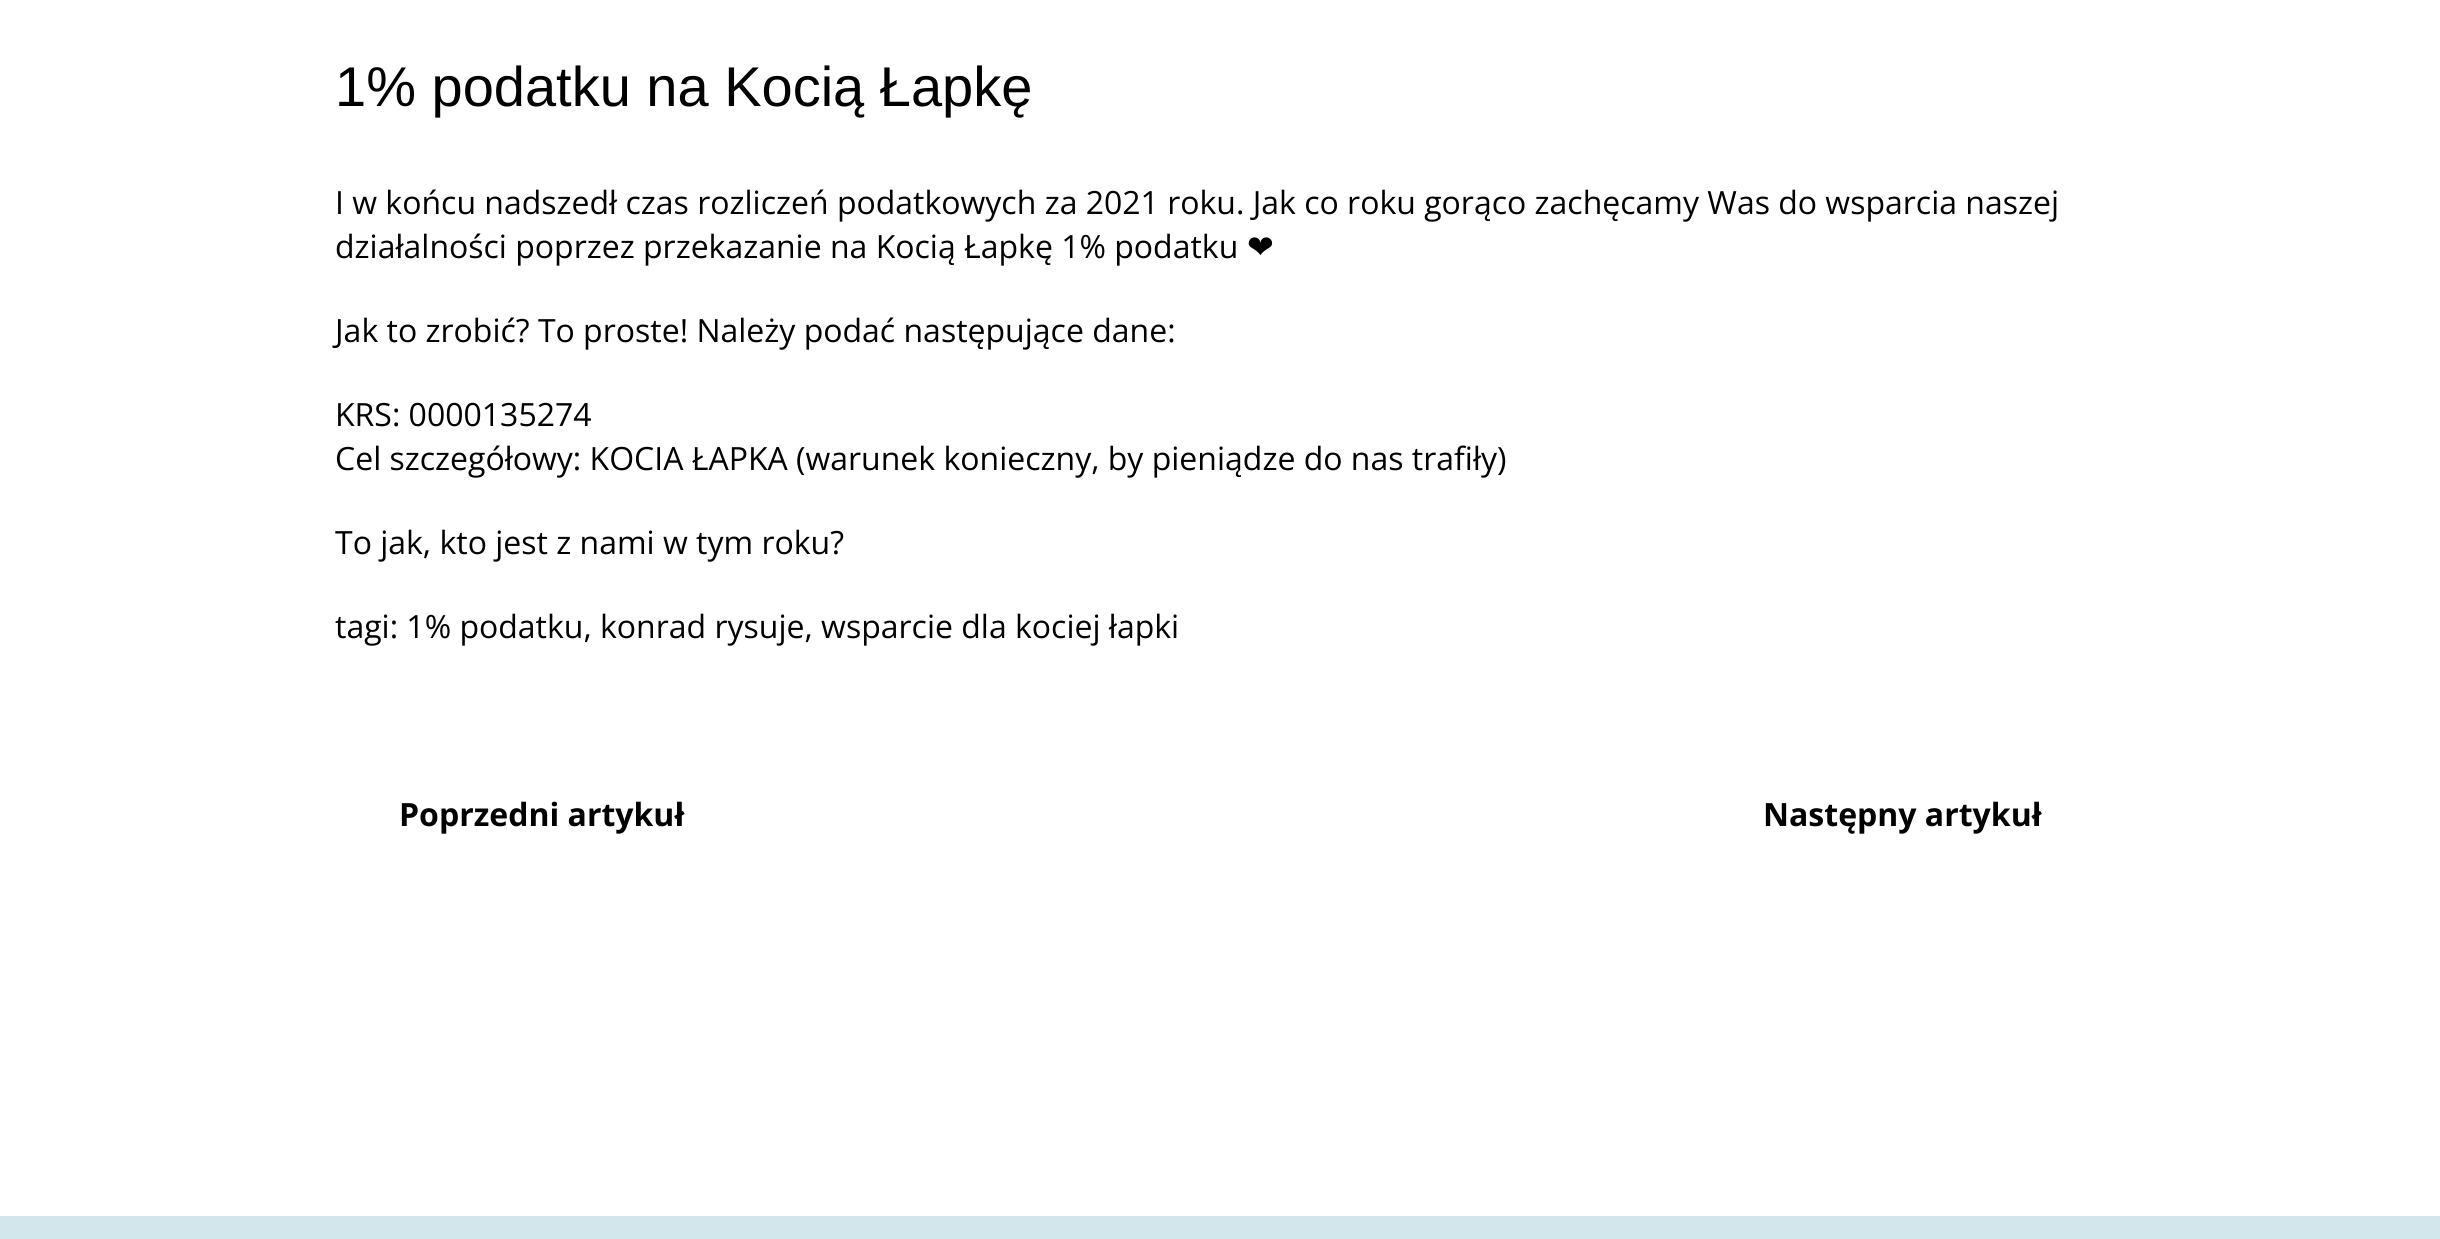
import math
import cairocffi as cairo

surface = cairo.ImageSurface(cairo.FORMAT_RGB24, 2440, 1239)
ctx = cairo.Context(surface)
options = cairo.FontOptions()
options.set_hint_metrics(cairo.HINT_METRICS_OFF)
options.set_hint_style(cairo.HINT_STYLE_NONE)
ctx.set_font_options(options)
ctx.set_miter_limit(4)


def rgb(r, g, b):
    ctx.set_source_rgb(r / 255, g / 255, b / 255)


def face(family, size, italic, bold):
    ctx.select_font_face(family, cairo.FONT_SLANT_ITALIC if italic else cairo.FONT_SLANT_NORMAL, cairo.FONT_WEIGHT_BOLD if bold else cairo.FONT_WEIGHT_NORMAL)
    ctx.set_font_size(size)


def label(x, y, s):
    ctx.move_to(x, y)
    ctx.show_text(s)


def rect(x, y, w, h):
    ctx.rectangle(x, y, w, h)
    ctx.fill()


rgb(255, 255, 255)
ctx.paint()
face('Liberation Sans', 56, 0, 0)
rgb(0, 0, 0)
label(335, 106, '1% podatku na Kocią Łapkę')
face('Open Sans', 32, 0, 0)
label(335, 214, 'I w końcu nadszedł czas rozliczeń podatkowych za 2021 roku. Jak co roku gorąco zachęcamy Was do wsparcia naszej')
label(335, 258, 'działalności poprzez przekazanie na Kocią Łapkę 1% podatku')
face('DejaVu Sans', 32, 0, 0)
label(1247, 258, '❤')
face('Open Sans', 32, 0, 0)
label(335, 342, 'Jak to zrobić? To proste! Należy podać następujące dane:')
label(335, 426, 'KRS: 0000135274')
label(335, 470, 'Cel szczegółowy: KOCIA ŁAPKA (warunek konieczny, by pieniądze do nas trafiły)')
label(335, 554, 'To jak, kto jest z nami w tym roku?')
label(335, 638, 'tagi: 1% podatku, konrad rysuje, wsparcie dla kociej łapki')
face('Open Sans', 32, 0, 1)
label(399, 826, 'Poprzedni artykuł')
label(1763, 826, 'Następny artykuł')
rgb(210, 231, 235)
rect(0, 1216, 2440, 23)
surface.write_to_png('render.png')
